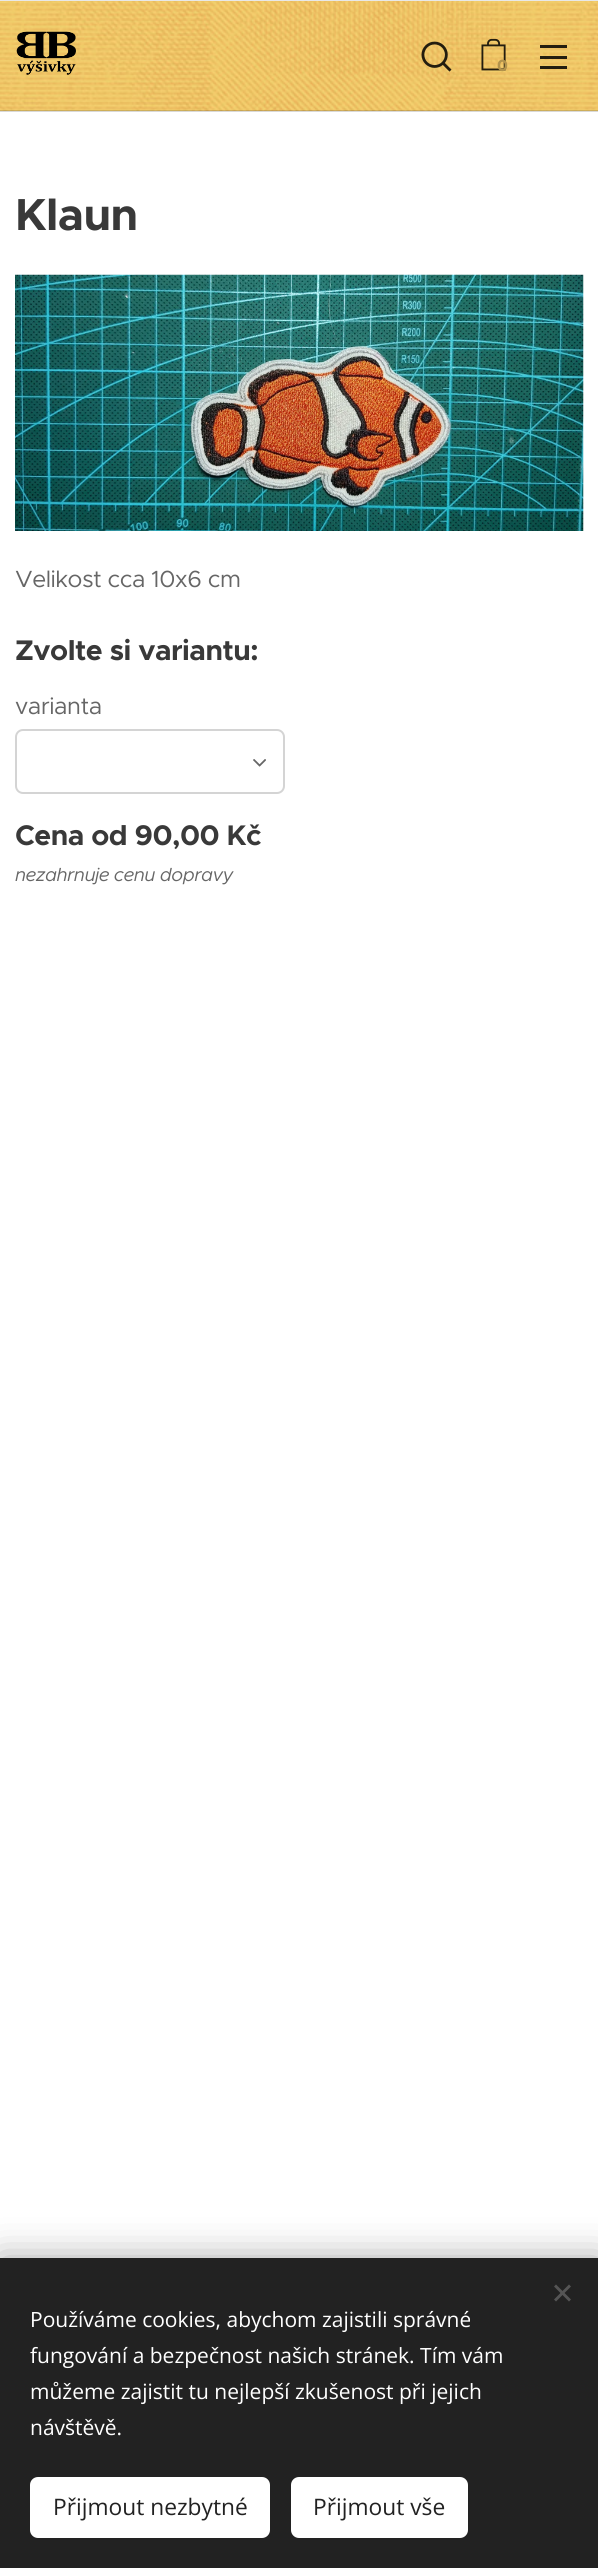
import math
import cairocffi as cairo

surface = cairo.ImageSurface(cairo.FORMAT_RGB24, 598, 2568)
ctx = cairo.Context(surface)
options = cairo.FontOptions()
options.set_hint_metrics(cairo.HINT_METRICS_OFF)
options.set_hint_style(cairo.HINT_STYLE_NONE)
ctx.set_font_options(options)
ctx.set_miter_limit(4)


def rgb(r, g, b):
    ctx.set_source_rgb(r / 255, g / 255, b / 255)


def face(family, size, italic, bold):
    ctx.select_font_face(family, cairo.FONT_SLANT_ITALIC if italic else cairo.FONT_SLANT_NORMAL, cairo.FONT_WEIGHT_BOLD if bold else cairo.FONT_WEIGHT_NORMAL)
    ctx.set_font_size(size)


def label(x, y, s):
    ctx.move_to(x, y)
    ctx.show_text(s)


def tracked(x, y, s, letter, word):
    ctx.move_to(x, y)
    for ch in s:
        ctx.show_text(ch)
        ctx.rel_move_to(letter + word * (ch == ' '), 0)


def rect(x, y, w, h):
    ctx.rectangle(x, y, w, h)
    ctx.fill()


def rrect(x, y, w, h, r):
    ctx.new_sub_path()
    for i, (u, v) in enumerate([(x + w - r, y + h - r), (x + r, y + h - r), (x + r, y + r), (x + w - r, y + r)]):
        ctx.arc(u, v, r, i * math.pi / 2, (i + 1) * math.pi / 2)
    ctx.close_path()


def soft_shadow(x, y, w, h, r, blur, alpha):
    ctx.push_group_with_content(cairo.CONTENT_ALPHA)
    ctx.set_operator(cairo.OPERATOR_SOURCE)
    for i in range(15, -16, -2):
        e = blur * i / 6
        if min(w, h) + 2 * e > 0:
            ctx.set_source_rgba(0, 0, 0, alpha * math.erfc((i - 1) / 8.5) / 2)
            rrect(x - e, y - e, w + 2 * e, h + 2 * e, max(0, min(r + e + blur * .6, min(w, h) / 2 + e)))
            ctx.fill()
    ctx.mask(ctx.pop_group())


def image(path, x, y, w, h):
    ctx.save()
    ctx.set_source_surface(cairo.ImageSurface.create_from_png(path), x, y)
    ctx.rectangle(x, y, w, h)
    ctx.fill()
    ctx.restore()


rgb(255, 255, 255)
ctx.paint()
image('image0.png', 0, 1, 598, 110)
image('image1.png', 16, 31, 60, 44)
rgb(232, 232, 232)
rect(0, 0, 598, 1)
image('image2.png', 421, 41, 31, 31)
image('image3.png', 481, 38, 25, 33)
face('Montserrat', 16, 0, 1)
rgb(178, 147, 76)
label(497, 71, '0')
ctx.set_source_rgba(0, 0, 0, 0.85)
rect(540, 56, 27, 3)
rect(540, 45, 27, 3)
rect(540, 66, 27, 3)
ctx.set_source_rgba(0, 0, 0, 0.15)
rect(0, 110, 598, 2)
face('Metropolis', 45, 0, 1)
rgb(57, 57, 57)
tracked(15, 230, 'Klaun', -0.5, 0)
image('image4.png', 15, 274, 569, 257)
face('Metropolis', 23.5, 0, 0)
rgb(102, 102, 102)
tracked(15, 587, 'Velikost cca 10x6 cm', -0.5, 0)
face('Metropolis', 28.5, 0, 1)
rgb(57, 57, 57)
tracked(15, 660, 'Zvolte si variantu:', -0.5, 0)
face('Metropolis', 23.5, 0, 0)
rgb(102, 102, 102)
tracked(15, 714, 'varianta', -0.5, 0)
rrect(16, 730, 268, 63, 7)
rgb(212, 212, 212)
ctx.stroke()
image('image5.png', 253, 759, 13, 8)
face('Metropolis', 28.5, 0, 1)
rgb(57, 57, 57)
tracked(15, 845, 'Cena od 90,00 Kč', -0.5, 0)
face('Metropolis', 18.75, 1, 0)
rgb(102, 102, 102)
tracked(15, 881, 'nezahrnuje cenu dopravy', -0.5, 0)
rgb(0, 0, 0)
soft_shadow(0, 2258, 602, 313, 0, 19, 0.33)
rgb(34, 34, 34)
rect(0, 2258, 598, 310)
rgb(85, 85, 85)
ctx.new_path()
ctx.move_to(554, 2299.5)
ctx.line_to(569, 2284.5)
ctx.line_to(571, 2286.5)
ctx.line_to(556, 2301.5)
ctx.close_path()
ctx.fill()
ctx.new_path()
ctx.move_to(556, 2284.5)
ctx.line_to(571, 2299.5)
ctx.line_to(569, 2301.5)
ctx.line_to(554, 2286.5)
ctx.close_path()
ctx.fill()
face('Open Sans', 21, 0, 0)
rgb(255, 255, 255)
label(30, 2327, 'Používáme cookies, abychom zajistili správné')
label(30, 2363, 'fungování a bezpečnost našich stránek. Tím vám')
label(30, 2399, 'můžeme zajistit tu nejlepší zkušenost při jejich')
label(30, 2435, 'návštěvě.')
rrect(30, 2477, 240, 61, 8)
ctx.fill()
face('Open Sans', 22.75, 0, 0)
rgb(34, 34, 34)
label(53, 2515, 'Přijmout nezbytné')
rgb(255, 255, 255)
rrect(291, 2477, 177, 61, 8)
ctx.fill()
rgb(34, 34, 34)
label(313, 2515, 'Přijmout vše')
surface.write_to_png('render.png')
